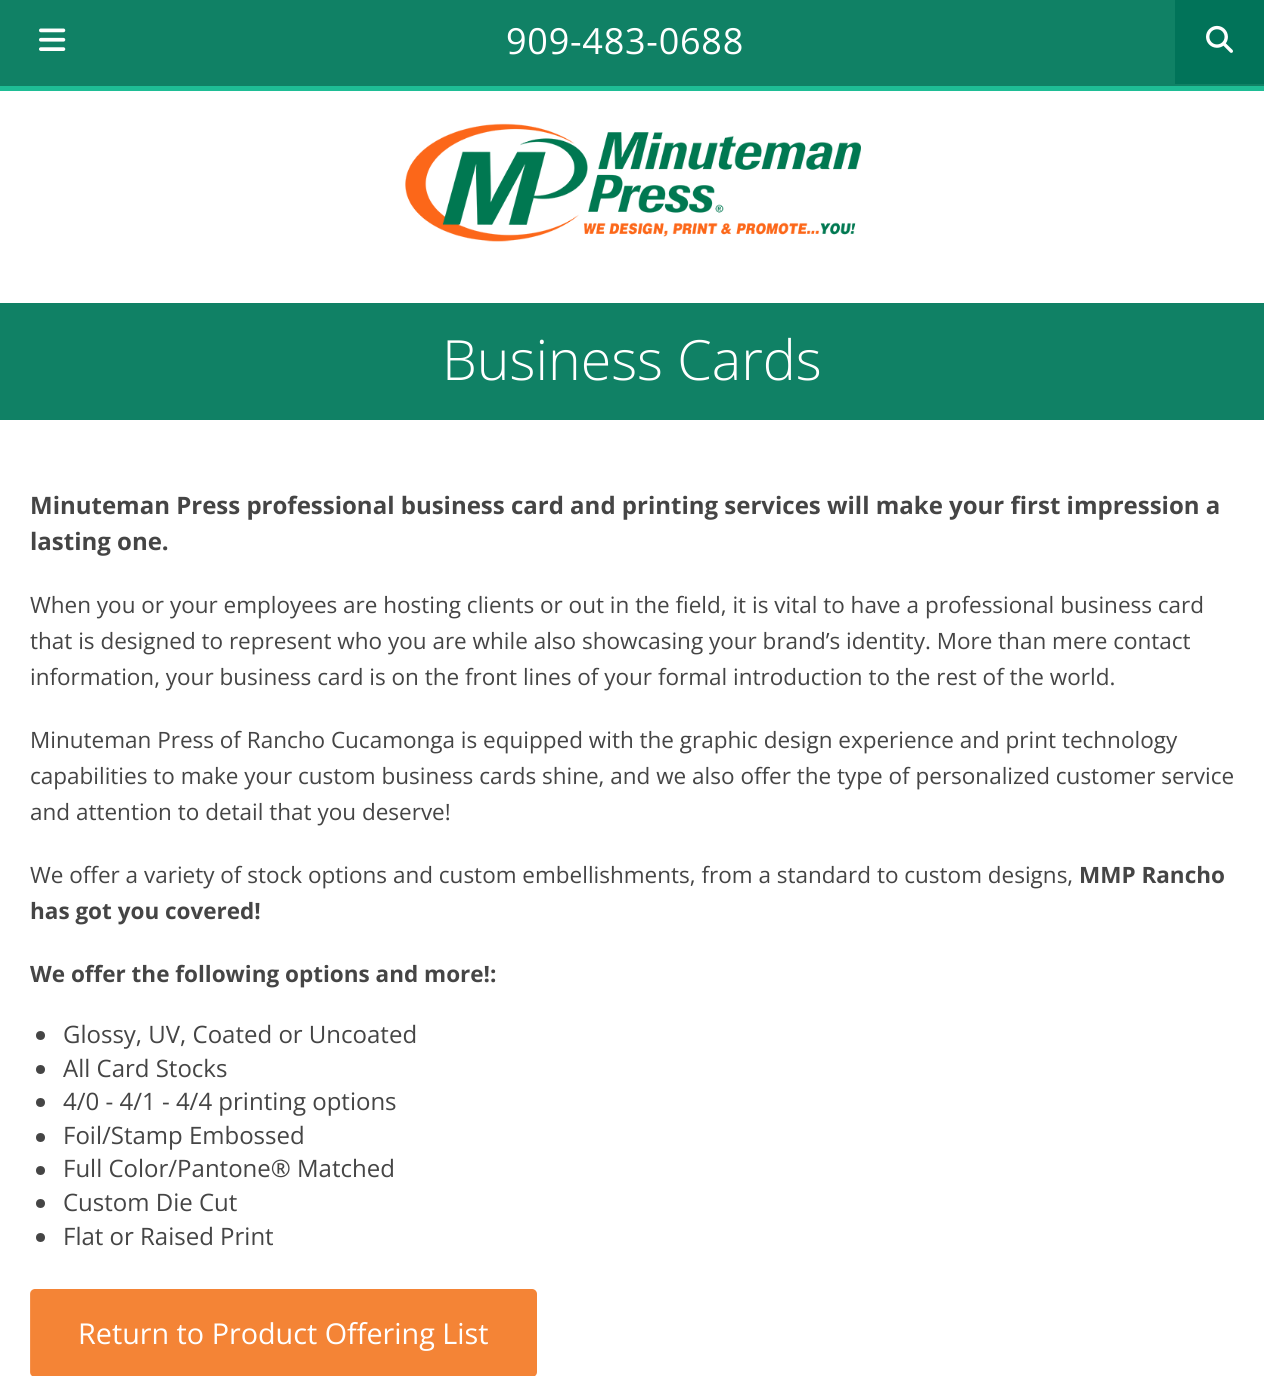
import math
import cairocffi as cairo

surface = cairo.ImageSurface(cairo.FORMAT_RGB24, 1264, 1376)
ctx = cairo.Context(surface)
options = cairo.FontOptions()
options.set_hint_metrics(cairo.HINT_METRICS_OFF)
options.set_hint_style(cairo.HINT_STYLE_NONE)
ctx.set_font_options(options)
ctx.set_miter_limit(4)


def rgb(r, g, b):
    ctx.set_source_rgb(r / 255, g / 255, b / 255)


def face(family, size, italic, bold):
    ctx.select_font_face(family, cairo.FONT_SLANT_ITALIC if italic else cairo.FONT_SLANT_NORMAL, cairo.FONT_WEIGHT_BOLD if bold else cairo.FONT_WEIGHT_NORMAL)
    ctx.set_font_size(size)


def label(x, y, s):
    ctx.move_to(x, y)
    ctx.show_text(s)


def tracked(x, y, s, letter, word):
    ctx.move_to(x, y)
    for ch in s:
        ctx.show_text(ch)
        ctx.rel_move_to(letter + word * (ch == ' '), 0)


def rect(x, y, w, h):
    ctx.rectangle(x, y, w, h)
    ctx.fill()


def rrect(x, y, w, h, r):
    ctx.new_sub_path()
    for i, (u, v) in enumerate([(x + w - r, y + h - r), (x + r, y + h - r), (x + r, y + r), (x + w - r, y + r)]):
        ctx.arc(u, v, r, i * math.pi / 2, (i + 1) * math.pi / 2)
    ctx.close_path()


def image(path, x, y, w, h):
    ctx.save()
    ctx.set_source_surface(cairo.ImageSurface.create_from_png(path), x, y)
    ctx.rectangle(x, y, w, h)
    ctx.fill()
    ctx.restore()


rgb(255, 255, 255)
ctx.paint()
rgb(16, 129, 101)
rect(0, 0, 1264, 86)
rgb(30, 189, 149)
rect(0, 86, 1264, 5)
image('image0.png', 39, 28, 27, 23)
face('Open Sans', 36, 0, 0)
rgb(255, 255, 255)
tracked(506, 54, '909-483-0688', 0.75, 0)
rgb(1, 115, 89)
rect(1175, 0, 89, 84)
image('image1.png', 1206, 25, 27, 28)
image('image2.png', 405, 123, 456, 119)
rgb(16, 129, 101)
rect(0, 303, 1264, 117)
face('Open Sans Light', 55.5, 0, 0)
rgb(255, 255, 255)
label(442, 380, 'Business Cards')
face('Open Sans', 24, 0, 1)
rgb(69, 69, 69)
label(30, 514, 'Minuteman Press professional business card and printing services will make your first impression a')
label(30, 550, 'lasting one.')
face('Open Sans', 22.5, 0, 0)
label(30, 613, 'When you or your employees are hosting clients or out in the field, it is vital to have a professional business card')
label(30, 649, 'that is designed to represent who you are while also showcasing your brand’s identity. More than mere contact')
label(30, 685, 'information, your business card is on the front lines of your formal introduction to the rest of the world.')
label(30, 748, 'Minuteman Press of Rancho Cucamonga is equipped with the graphic design experience and print technology')
label(30, 784, 'capabilities to make your custom business cards shine, and we also offer the type of personalized customer service')
label(30, 820, 'and attention to detail that you deserve!')
label(30, 883, 'We offer a variety of stock options and custom embellishments, from a standard to custom designs,')
face('Open Sans', 22.5, 0, 1)
label(1079, 883, 'MMP Rancho')
label(30, 919, 'has got you covered!')
label(30, 982, 'We offer the following options and more!:')
ctx.new_path()
ctx.arc(40.5, 1035.5, 4.5, 0, 2 * math.pi)
ctx.fill()
face('Open Sans', 24, 0, 0)
label(63, 1043, 'Glossy, UV, Coated or Uncoated')
ctx.new_path()
ctx.arc(40.5, 1069.5, 4.5, 0, 2 * math.pi)
ctx.fill()
label(63, 1077, 'All Card Stocks')
ctx.new_path()
ctx.arc(40.5, 1102.5, 4.5, 0, 2 * math.pi)
ctx.fill()
label(63, 1110, '4/0 - 4/1 - 4/4 printing options')
ctx.new_path()
ctx.arc(40.5, 1137.5, 4.5, 0, 2 * math.pi)
ctx.fill()
label(63, 1144, 'Foil/Stamp Embossed')
ctx.new_path()
ctx.arc(40.5, 1170.5, 4.5, 0, 2 * math.pi)
ctx.fill()
label(63, 1177, 'Full Color/Pantone® Matched')
ctx.new_path()
ctx.arc(40.5, 1203.5, 4.5, 0, 2 * math.pi)
ctx.fill()
label(63, 1211, 'Custom Die Cut')
ctx.new_path()
ctx.arc(40.5, 1237.5, 4.5, 0, 2 * math.pi)
ctx.fill()
label(63, 1245, 'Flat or Raised Print')
rgb(244, 132, 54)
rrect(30, 1289, 507, 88, 5)
ctx.fill()
rrect(28.5, 1286.5, 511, 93, 6.5)
ctx.set_source_rgba(1, 1, 1, 0.1)
ctx.set_line_width(5)
ctx.stroke()
face('Open Sans', 28.75, 0, 0)
rgb(255, 255, 255)
label(78, 1344, 'Return to Product Offering List')
surface.write_to_png('render.png')
